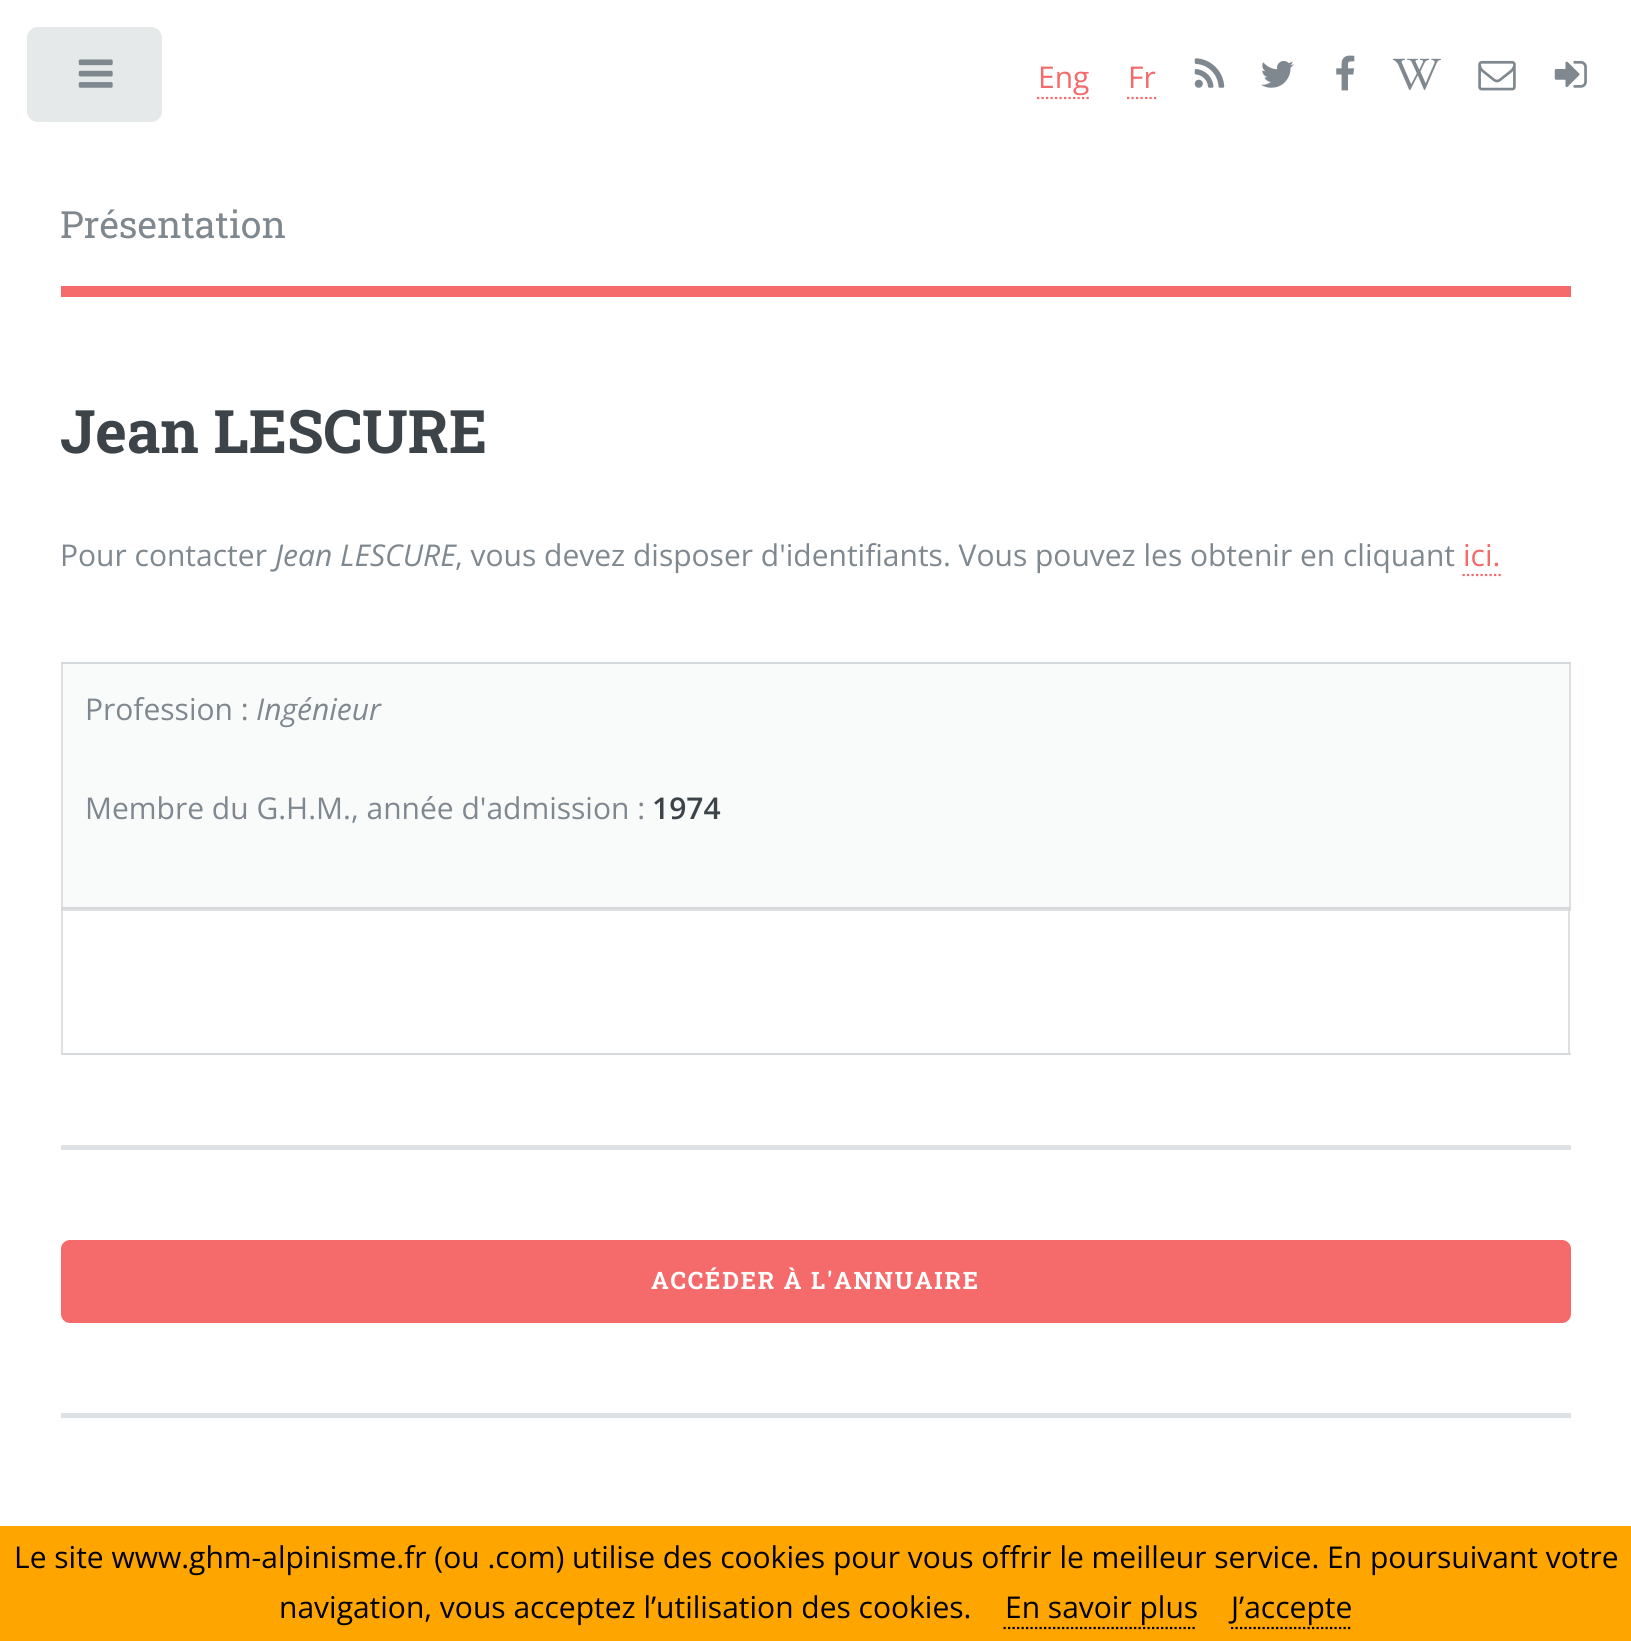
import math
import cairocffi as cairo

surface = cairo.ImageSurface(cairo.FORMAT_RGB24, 1631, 1641)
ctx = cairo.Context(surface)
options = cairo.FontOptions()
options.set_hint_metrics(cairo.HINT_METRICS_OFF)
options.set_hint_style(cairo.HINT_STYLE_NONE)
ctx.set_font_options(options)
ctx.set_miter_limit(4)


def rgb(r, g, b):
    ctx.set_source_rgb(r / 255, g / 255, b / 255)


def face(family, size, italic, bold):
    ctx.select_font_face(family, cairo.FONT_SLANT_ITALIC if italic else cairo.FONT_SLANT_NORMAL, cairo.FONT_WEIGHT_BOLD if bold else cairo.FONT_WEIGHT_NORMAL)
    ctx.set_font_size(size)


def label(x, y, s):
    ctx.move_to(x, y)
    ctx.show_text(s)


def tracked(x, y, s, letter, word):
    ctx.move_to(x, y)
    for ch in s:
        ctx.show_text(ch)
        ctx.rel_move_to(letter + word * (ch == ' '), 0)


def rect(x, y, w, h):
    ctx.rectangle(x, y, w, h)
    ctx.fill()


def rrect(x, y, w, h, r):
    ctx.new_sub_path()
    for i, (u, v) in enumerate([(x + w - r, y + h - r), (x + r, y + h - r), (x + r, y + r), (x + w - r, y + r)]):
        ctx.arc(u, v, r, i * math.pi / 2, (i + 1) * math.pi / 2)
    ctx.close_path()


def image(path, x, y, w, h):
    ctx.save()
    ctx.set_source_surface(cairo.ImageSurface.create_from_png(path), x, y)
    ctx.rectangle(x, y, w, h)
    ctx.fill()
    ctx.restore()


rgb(255, 255, 255)
ctx.paint()
rgb(230, 233, 233)
rrect(27, 27, 135, 95, 11)
ctx.fill()
image('image0.png', 78, 59, 35, 29)
rgb(245, 106, 106)
rect(61, 286, 1510, 11)
face('Open Sans', 30, 0, 0)
label(1038, 88, 'Eng')
ctx.new_path()
ctx.move_to(1037, 98)
ctx.line_to(1089, 98)
ctx.set_line_width(2.2)
ctx.set_dash([2.25, 2.25])
ctx.stroke()
label(1128, 88, 'Fr')
ctx.new_path()
ctx.move_to(1127, 98)
ctx.line_to(1156.5, 98)
ctx.stroke()
image('image1.png', 1194, 58, 31, 30)
image('image2.png', 1261, 61, 33, 27)
image('image3.png', 1336, 55, 19, 36)
image('image4.png', 1392, 58, 49, 32)
image('image5.png', 1478, 60, 38, 31)
image('image6.png', 1554, 60, 33, 28)
face('Roboto Slab', 37.5, 0, 0)
rgb(127, 136, 143)
label(60, 238, 'Présentation')
face('Roboto Slab', 60, 0, 1)
rgb(61, 68, 73)
label(60, 453, 'Jean LESCURE')
face('Open Sans', 30, 0, 0)
rgb(127, 136, 143)
label(60, 566, 'Pour contacter')
face('Open Sans', 30, 1, 0)
label(275, 566, 'Jean LESCURE')
face('Open Sans', 30, 0, 0)
label(455, 566, ', vous devez disposer d\'identifiants. Vous pouvez les obtenir en cliquant')
rgb(245, 106, 106)
label(1463, 566, 'ici.')
ctx.new_path()
ctx.move_to(1462.5, 575)
ctx.line_to(1501, 575)
ctx.stroke()
rgb(249, 251, 251)
rect(61, 664, 1510, 243)
rgb(220, 224, 226)
rect(61, 662, 1510, 2)
rect(61, 907, 1510, 2)
ctx.rectangle(62, 663, 1508, 245)
ctx.set_source_rgba(0.824, 0.843, 0.851, 0.75)
ctx.set_line_width(2)
ctx.set_dash([])
ctx.stroke()
rgb(127, 136, 143)
label(85, 720, 'Profession :')
face('Open Sans', 30, 1, 0)
label(256, 720, 'Ingénieur')
face('Open Sans', 30, 0, 0)
label(85, 819, 'Membre du G.H.M., année d\'admission :')
face('Open Sans SemiBold', 30, 0, 0)
rgb(61, 68, 73)
label(652, 819, '1974')
rgb(221, 225, 227)
rect(61, 909, 1510, 2)
rect(61, 1053, 1510, 2)
ctx.set_source_rgba(0.824, 0.843, 0.851, 0.75)
ctx.new_path()
ctx.move_to(1570, 909)
ctx.line_to(1570, 1055)
ctx.line_to(1568, 1053)
ctx.line_to(1568, 909)
ctx.close_path()
ctx.fill()
ctx.new_path()
ctx.move_to(1570, 1055)
ctx.line_to(61, 1055)
ctx.line_to(63, 1053)
ctx.line_to(1568, 1053)
ctx.close_path()
ctx.fill()
ctx.new_path()
ctx.move_to(61, 1055)
ctx.line_to(61, 909)
ctx.line_to(63, 909)
ctx.line_to(63, 1053)
ctx.close_path()
ctx.fill()
rgb(221, 225, 227)
rect(61, 1145, 1510, 5)
rgb(245, 106, 106)
rrect(61, 1240, 1510, 83, 9)
ctx.fill()
face('Roboto Slab', 24, 0, 1)
rgb(255, 255, 255)
tracked(651, 1289, 'ACCÉDER À L\'ANNUAIRE', 1.8, 0)
rgb(221, 225, 227)
rect(61, 1413, 1510, 5)
rgb(255, 165, 0)
rect(0, 1526, 1631, 115)
face('Open Sans', 30, 0, 0)
rgb(0, 0, 0)
label(14, 1568, 'Le site www.ghm-alpinisme.fr (ou .com) utilise des cookies pour vous offrir le meilleur service. En poursuivant votre')
label(279, 1618, 'navigation, vous acceptez l’utilisation des cookies.')
label(1005, 1618, 'En savoir plus')
ctx.new_path()
ctx.move_to(1003.5, 1628)
ctx.line_to(1197, 1628)
ctx.set_line_width(2.2)
ctx.set_dash([2.25, 2.25])
ctx.stroke()
label(1231, 1618, 'J’accepte')
ctx.new_path()
ctx.move_to(1231, 1628)
ctx.line_to(1352, 1628)
ctx.stroke()
surface.write_to_png('render.png')
